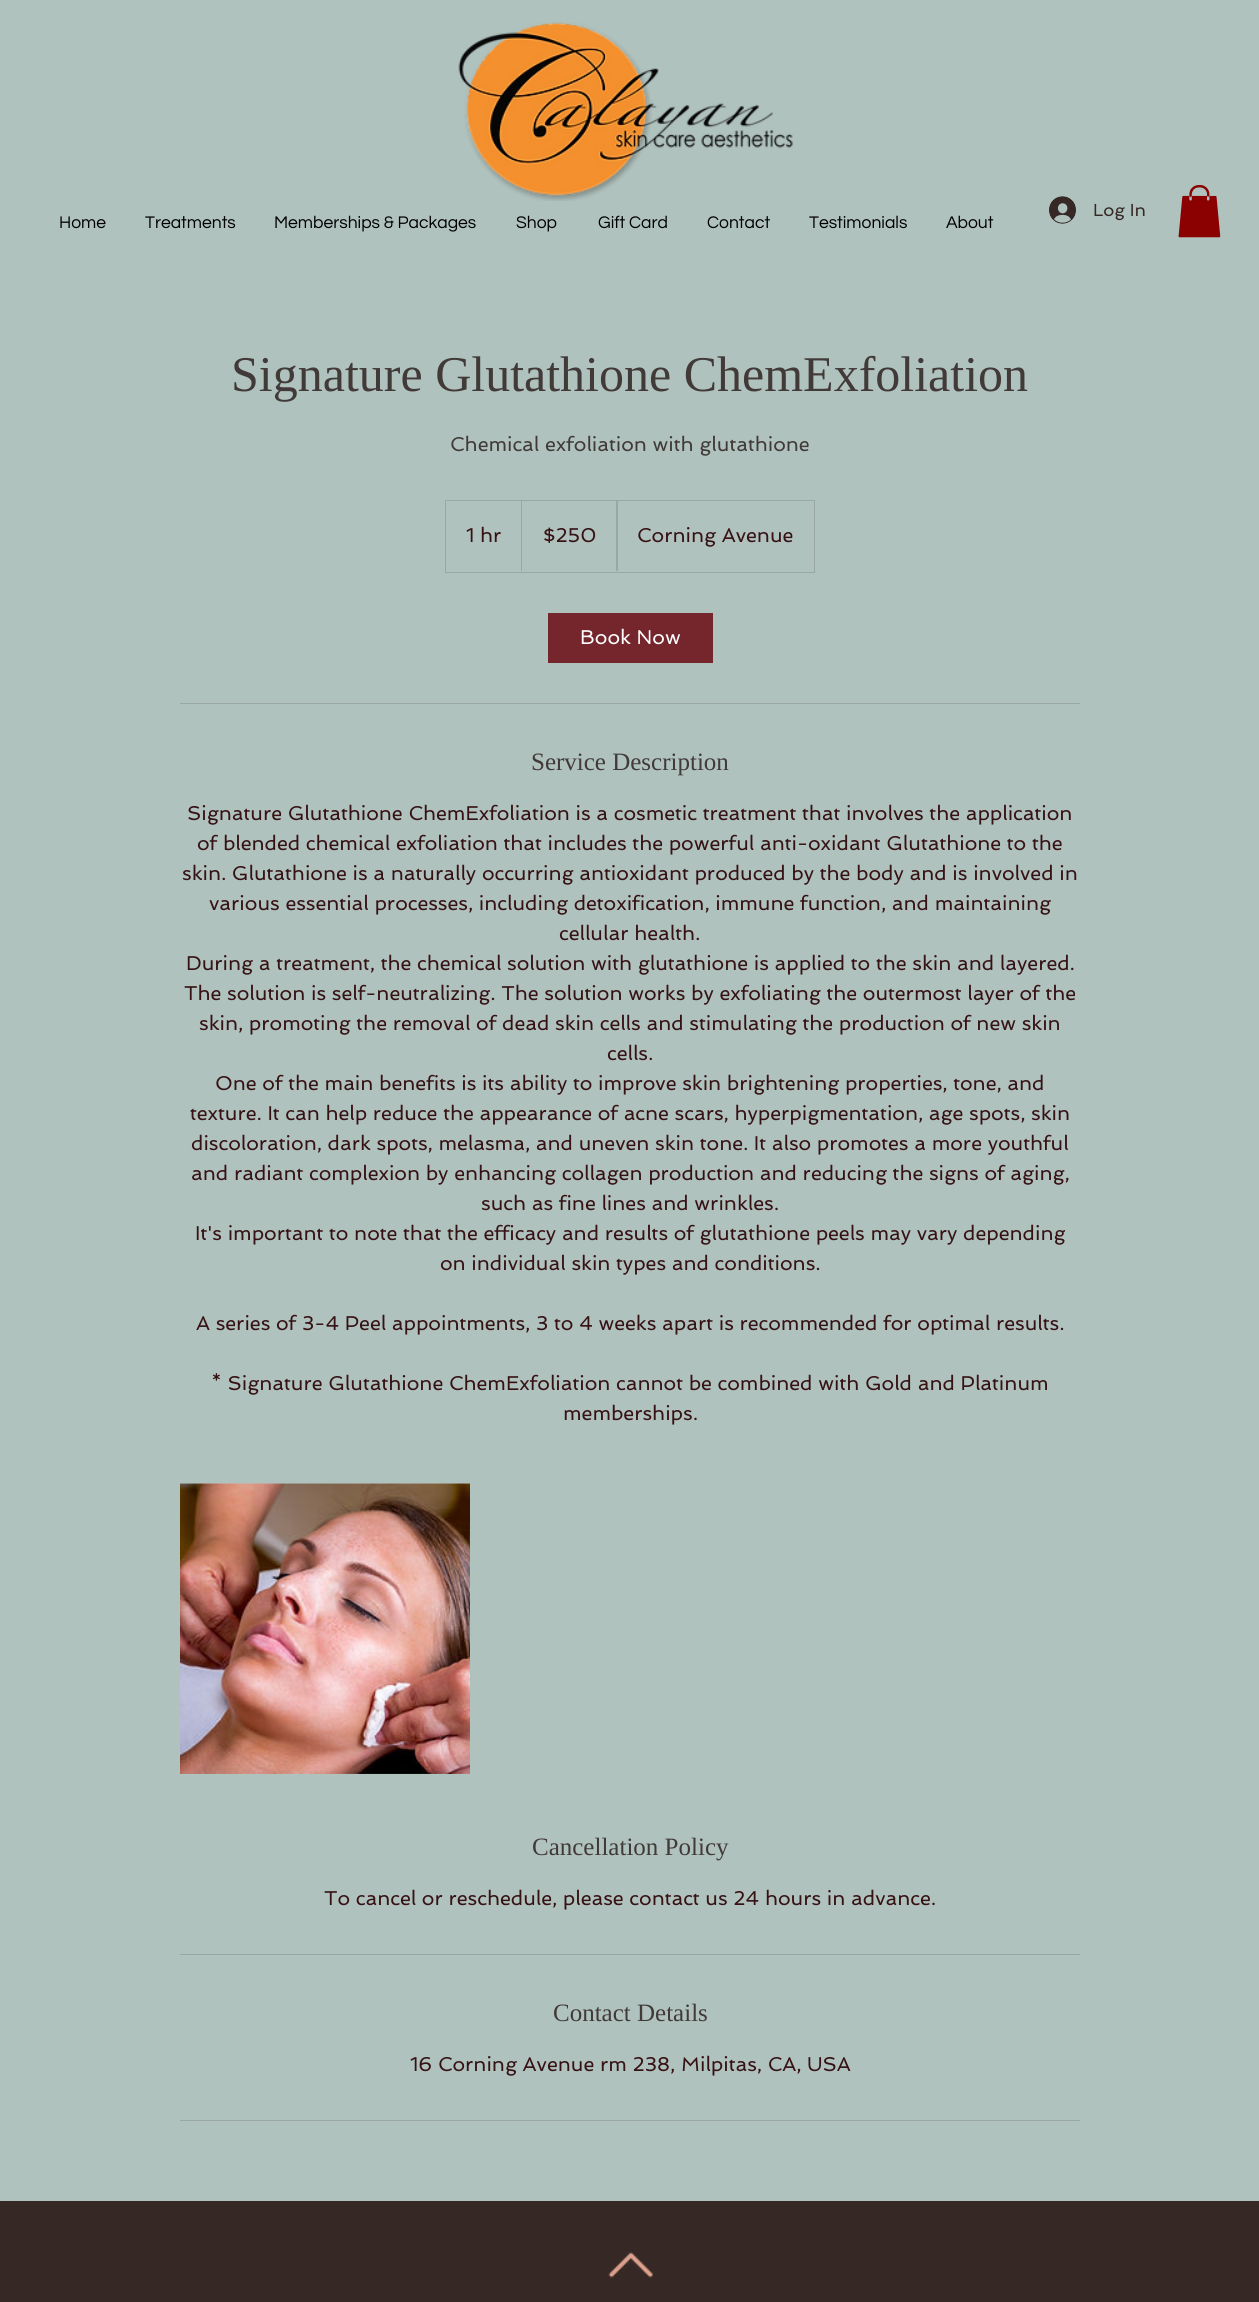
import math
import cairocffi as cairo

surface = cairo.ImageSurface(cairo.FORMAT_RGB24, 1259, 2302)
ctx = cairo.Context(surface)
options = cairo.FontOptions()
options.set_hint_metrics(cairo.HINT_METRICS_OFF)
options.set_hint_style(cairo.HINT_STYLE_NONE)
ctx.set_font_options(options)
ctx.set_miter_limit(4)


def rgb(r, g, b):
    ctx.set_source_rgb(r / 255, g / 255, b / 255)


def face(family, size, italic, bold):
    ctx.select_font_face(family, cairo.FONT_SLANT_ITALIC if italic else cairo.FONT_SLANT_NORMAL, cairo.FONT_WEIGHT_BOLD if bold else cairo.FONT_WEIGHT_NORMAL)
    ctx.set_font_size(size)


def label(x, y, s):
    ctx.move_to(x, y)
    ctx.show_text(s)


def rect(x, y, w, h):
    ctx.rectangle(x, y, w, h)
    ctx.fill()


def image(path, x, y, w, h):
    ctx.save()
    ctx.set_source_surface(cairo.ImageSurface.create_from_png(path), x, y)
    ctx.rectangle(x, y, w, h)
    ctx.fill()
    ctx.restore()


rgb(176, 194, 190)
ctx.paint()
image('image0.png', 458, 22, 335, 179)
image('image1.png', 1049, 196, 27, 28)
face('Spinnaker', 17.5, 0, 0)
rgb(54, 41, 37)
label(1093, 216, 'Log In')
image('image2.png', 1178, 185, 43, 53)
face('Questrial', 17.5, 0, 0)
rgb(0, 0, 0)
label(59, 228, 'Home')
label(145, 228, 'Treatments')
label(274, 228, 'Memberships & Packages')
label(516, 228, 'Shop')
label(598, 228, 'Gift Card')
label(707, 228, 'Contact')
label(809, 228, 'Testimonials')
label(946, 228, 'About')
face('Liberation Serif', 50, 0, 0)
rgb(65, 58, 56)
label(231, 391, 'Signature Glutathione ChemExfoliation')
face('Spinnaker', 20, 0, 0)
label(450, 451, 'Chemical exfoliation with glutathione')
ctx.rectangle(445.5, 500.5, 369, 72)
rgb(154, 167, 163)
ctx.set_line_width(1)
ctx.stroke()
rgb(54, 18, 21)
label(466, 542, '1 hr')
rgb(154, 167, 163)
ctx.new_path()
ctx.move_to(521, 571)
ctx.line_to(521, 500)
ctx.line_to(522, 501)
ctx.line_to(522, 571)
ctx.close_path()
ctx.fill()
rgb(54, 18, 21)
label(543, 542, '$250')
rgb(154, 167, 163)
ctx.new_path()
ctx.move_to(616, 571)
ctx.line_to(616, 500)
ctx.line_to(618, 501)
ctx.line_to(618, 571)
ctx.close_path()
ctx.fill()
rgb(54, 18, 21)
label(637, 542, 'Corning Avenue')
rgb(116, 38, 44)
rect(548, 613, 165, 50)
rgb(255, 255, 255)
label(580, 644, 'Book Now')
rgb(154, 167, 163)
rect(180, 703, 900, 1)
face('Liberation Serif', 25, 0, 0)
rgb(65, 58, 56)
label(531, 770, 'Service Description')
face('Spinnaker', 20, 0, 0)
rgb(54, 18, 21)
label(187, 820, 'Signature Glutathione ChemExfoliation is a cosmetic treatment that involves the application')
label(197, 850, 'of blended chemical exfoliation that includes the powerful anti-oxidant Glutathione to the')
label(182, 880, 'skin. Glutathione is a naturally occurring antioxidant produced by the body and is involved in')
label(209, 910, 'various essential processes, including detoxification, immune function, and maintaining')
label(559, 940, 'cellular health.')
label(186, 970, 'During a treatment, the chemical solution with glutathione is applied to the skin and layered.')
label(184, 1000, 'The solution is self-neutralizing. The solution works by exfoliating the outermost layer of the')
label(199, 1030, 'skin, promoting the removal of dead skin cells and stimulating the production of new skin')
label(607, 1060, 'cells.')
label(215, 1090, 'One of the main benefits is its ability to improve skin brightening properties, tone, and')
label(190, 1120, 'texture. It can help reduce the appearance of acne scars, hyperpigmentation, age spots, skin')
label(191, 1150, 'discoloration, dark spots, melasma, and uneven skin tone. It also promotes a more youthful')
label(191, 1180, 'and radiant complexion by enhancing collagen production and reducing the signs of aging,')
label(481, 1210, 'such as fine lines and wrinkles.')
label(195, 1240, 'It\'s important to note that the efficacy and results of glutathione peels may vary depending')
label(440, 1270, 'on individual skin types and conditions.')
label(196, 1330, 'A series of 3-4 Peel appointments, 3 to 4 weeks apart is recommended for optimal results.')
label(211, 1390, '* Signature Glutathione ChemExfoliation cannot be combined with Gold and Platinum')
label(563, 1420, 'memberships.')
image('image3.png', 180, 1483, 290, 291)
image('image4.png', 180, 1483, 290, 291)
face('Liberation Serif', 25, 0, 0)
rgb(65, 58, 56)
label(532, 1855, 'Cancellation Policy')
face('Spinnaker', 20, 0, 0)
rgb(54, 18, 21)
label(324, 1905, 'To cancel or reschedule, please contact us 24 hours in advance.')
rgb(154, 167, 163)
rect(180, 1954, 900, 1)
face('Liberation Serif', 25, 0, 0)
rgb(65, 58, 56)
label(553, 2021, 'Contact Details')
face('Spinnaker', 20, 0, 0)
rgb(54, 18, 21)
label(410, 2071, '16 Corning Avenue rm 238, Milpitas, CA, USA')
rgb(154, 167, 163)
rect(180, 2120, 900, 1)
rgb(54, 41, 37)
rect(0, 2201, 1259, 101)
image('image5.png', 608, 2252, 45, 26)
surface.write_to_png('render.png')
